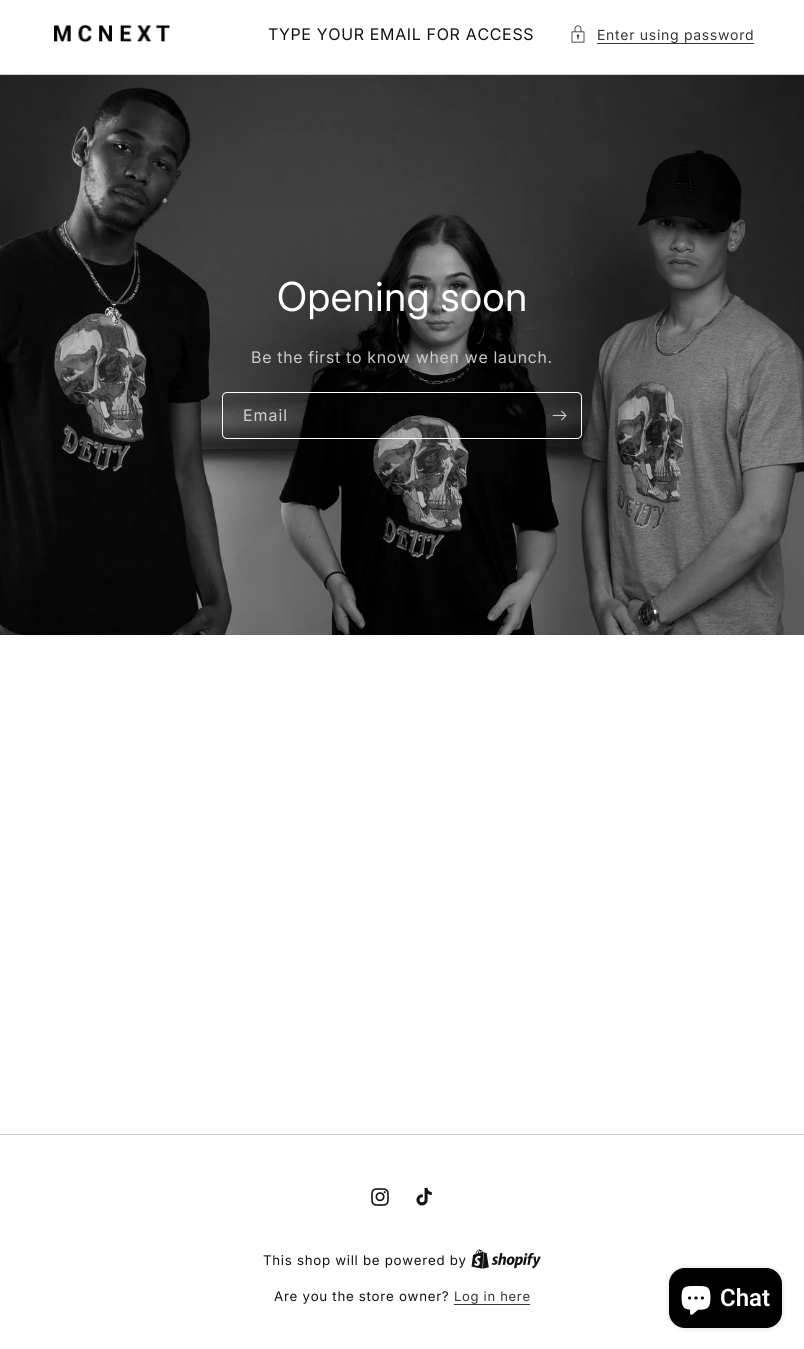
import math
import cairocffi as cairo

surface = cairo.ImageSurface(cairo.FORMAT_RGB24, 804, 1349)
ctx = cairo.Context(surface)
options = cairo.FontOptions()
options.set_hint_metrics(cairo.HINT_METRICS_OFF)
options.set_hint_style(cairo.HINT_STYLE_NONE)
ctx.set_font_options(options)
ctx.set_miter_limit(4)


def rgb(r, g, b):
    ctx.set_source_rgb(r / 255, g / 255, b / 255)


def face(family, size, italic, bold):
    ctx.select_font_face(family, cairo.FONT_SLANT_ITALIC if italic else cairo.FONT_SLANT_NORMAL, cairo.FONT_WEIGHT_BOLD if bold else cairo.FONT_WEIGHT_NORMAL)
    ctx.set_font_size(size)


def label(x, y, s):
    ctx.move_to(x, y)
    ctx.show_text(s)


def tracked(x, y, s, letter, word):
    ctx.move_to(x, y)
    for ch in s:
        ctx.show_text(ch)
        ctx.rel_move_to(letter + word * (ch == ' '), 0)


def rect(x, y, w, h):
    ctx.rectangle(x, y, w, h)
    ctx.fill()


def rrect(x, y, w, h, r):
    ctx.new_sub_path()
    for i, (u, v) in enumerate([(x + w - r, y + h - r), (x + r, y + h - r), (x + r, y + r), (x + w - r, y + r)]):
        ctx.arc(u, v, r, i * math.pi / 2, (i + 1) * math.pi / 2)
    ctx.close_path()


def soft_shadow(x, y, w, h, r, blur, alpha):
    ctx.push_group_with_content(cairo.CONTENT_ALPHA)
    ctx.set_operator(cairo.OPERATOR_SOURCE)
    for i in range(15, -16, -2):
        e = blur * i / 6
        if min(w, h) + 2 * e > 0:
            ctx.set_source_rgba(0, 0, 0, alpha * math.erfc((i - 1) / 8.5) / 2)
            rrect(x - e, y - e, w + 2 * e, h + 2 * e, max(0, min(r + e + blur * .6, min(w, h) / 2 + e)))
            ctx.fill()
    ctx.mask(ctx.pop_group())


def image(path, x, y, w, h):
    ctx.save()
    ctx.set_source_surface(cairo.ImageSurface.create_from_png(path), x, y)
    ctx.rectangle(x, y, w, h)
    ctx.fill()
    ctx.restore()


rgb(255, 255, 255)
ctx.paint()
image('image0.png', 54, 24, 116, 19)
face('Inter', 16, 0, 0)
rgb(18, 18, 18)
tracked(268, 40, 'TYPE YOUR EMAIL FOR ACCESS', 0.7, 0)
image('image1.png', 571, 25, 14, 18)
face('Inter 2', 14, 0, 0)
rgb(54, 54, 54)
tracked(597, 40, 'Enter using password', 0.7, 0)
rect(597, 43, 157, 1)
rgb(208, 208, 208)
rect(0, 74, 804, 1)
image('image2.png', 0, 75, 804, 560)
face('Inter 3', 40, 0, 0)
rgb(255, 255, 255)
tracked(277, 311, 'Opening soon', 0.6, 0)
face('Inter', 16, 0, 0)
rgb(202, 202, 202)
tracked(251, 363, 'Be the first to know when we launch.', 0.7, 0)
rrect(222.5, 392.5, 359, 46, 4.5)
rgb(255, 255, 255)
ctx.set_line_width(1)
ctx.stroke()
rgb(209, 209, 209)
tracked(243, 421, 'Email', 1, 0)
image('image3.png', 552, 410, 15, 11)
rgb(208, 208, 208)
rect(0, 1134, 804, 1)
image('image4.png', 371, 1188, 18, 18)
image('image5.png', 416, 1187, 16, 19)
face('Inter 2', 13.3, 0, 0)
rgb(18, 18, 18)
tracked(263, 1265, 'This shop will be powered by', 0.7, 0)
image('image6.png', 471, 1249, 70, 20)
tracked(274, 1301, 'Are you the store owner?', 0.7, 0)
face('Inter 2', 13, 0, 0)
rgb(54, 54, 54)
tracked(454, 1301, 'Log in here', 0.7, 0)
rect(454, 1304, 76, 1)
rgb(0, 0, 0)
soft_shadow(669, 1268, 113, 60, 16, 2.5, 0.15)
rgb(0, 0, 0)
rrect(669, 1268, 113, 60, 16)
ctx.fill()
image('image7.png', 681, 1286, 30, 29)
face('Roboto SemiBold', 24, 0, 0)
rgb(255, 255, 255)
label(720, 1306, 'Chat')
surface.write_to_png('render.png')
